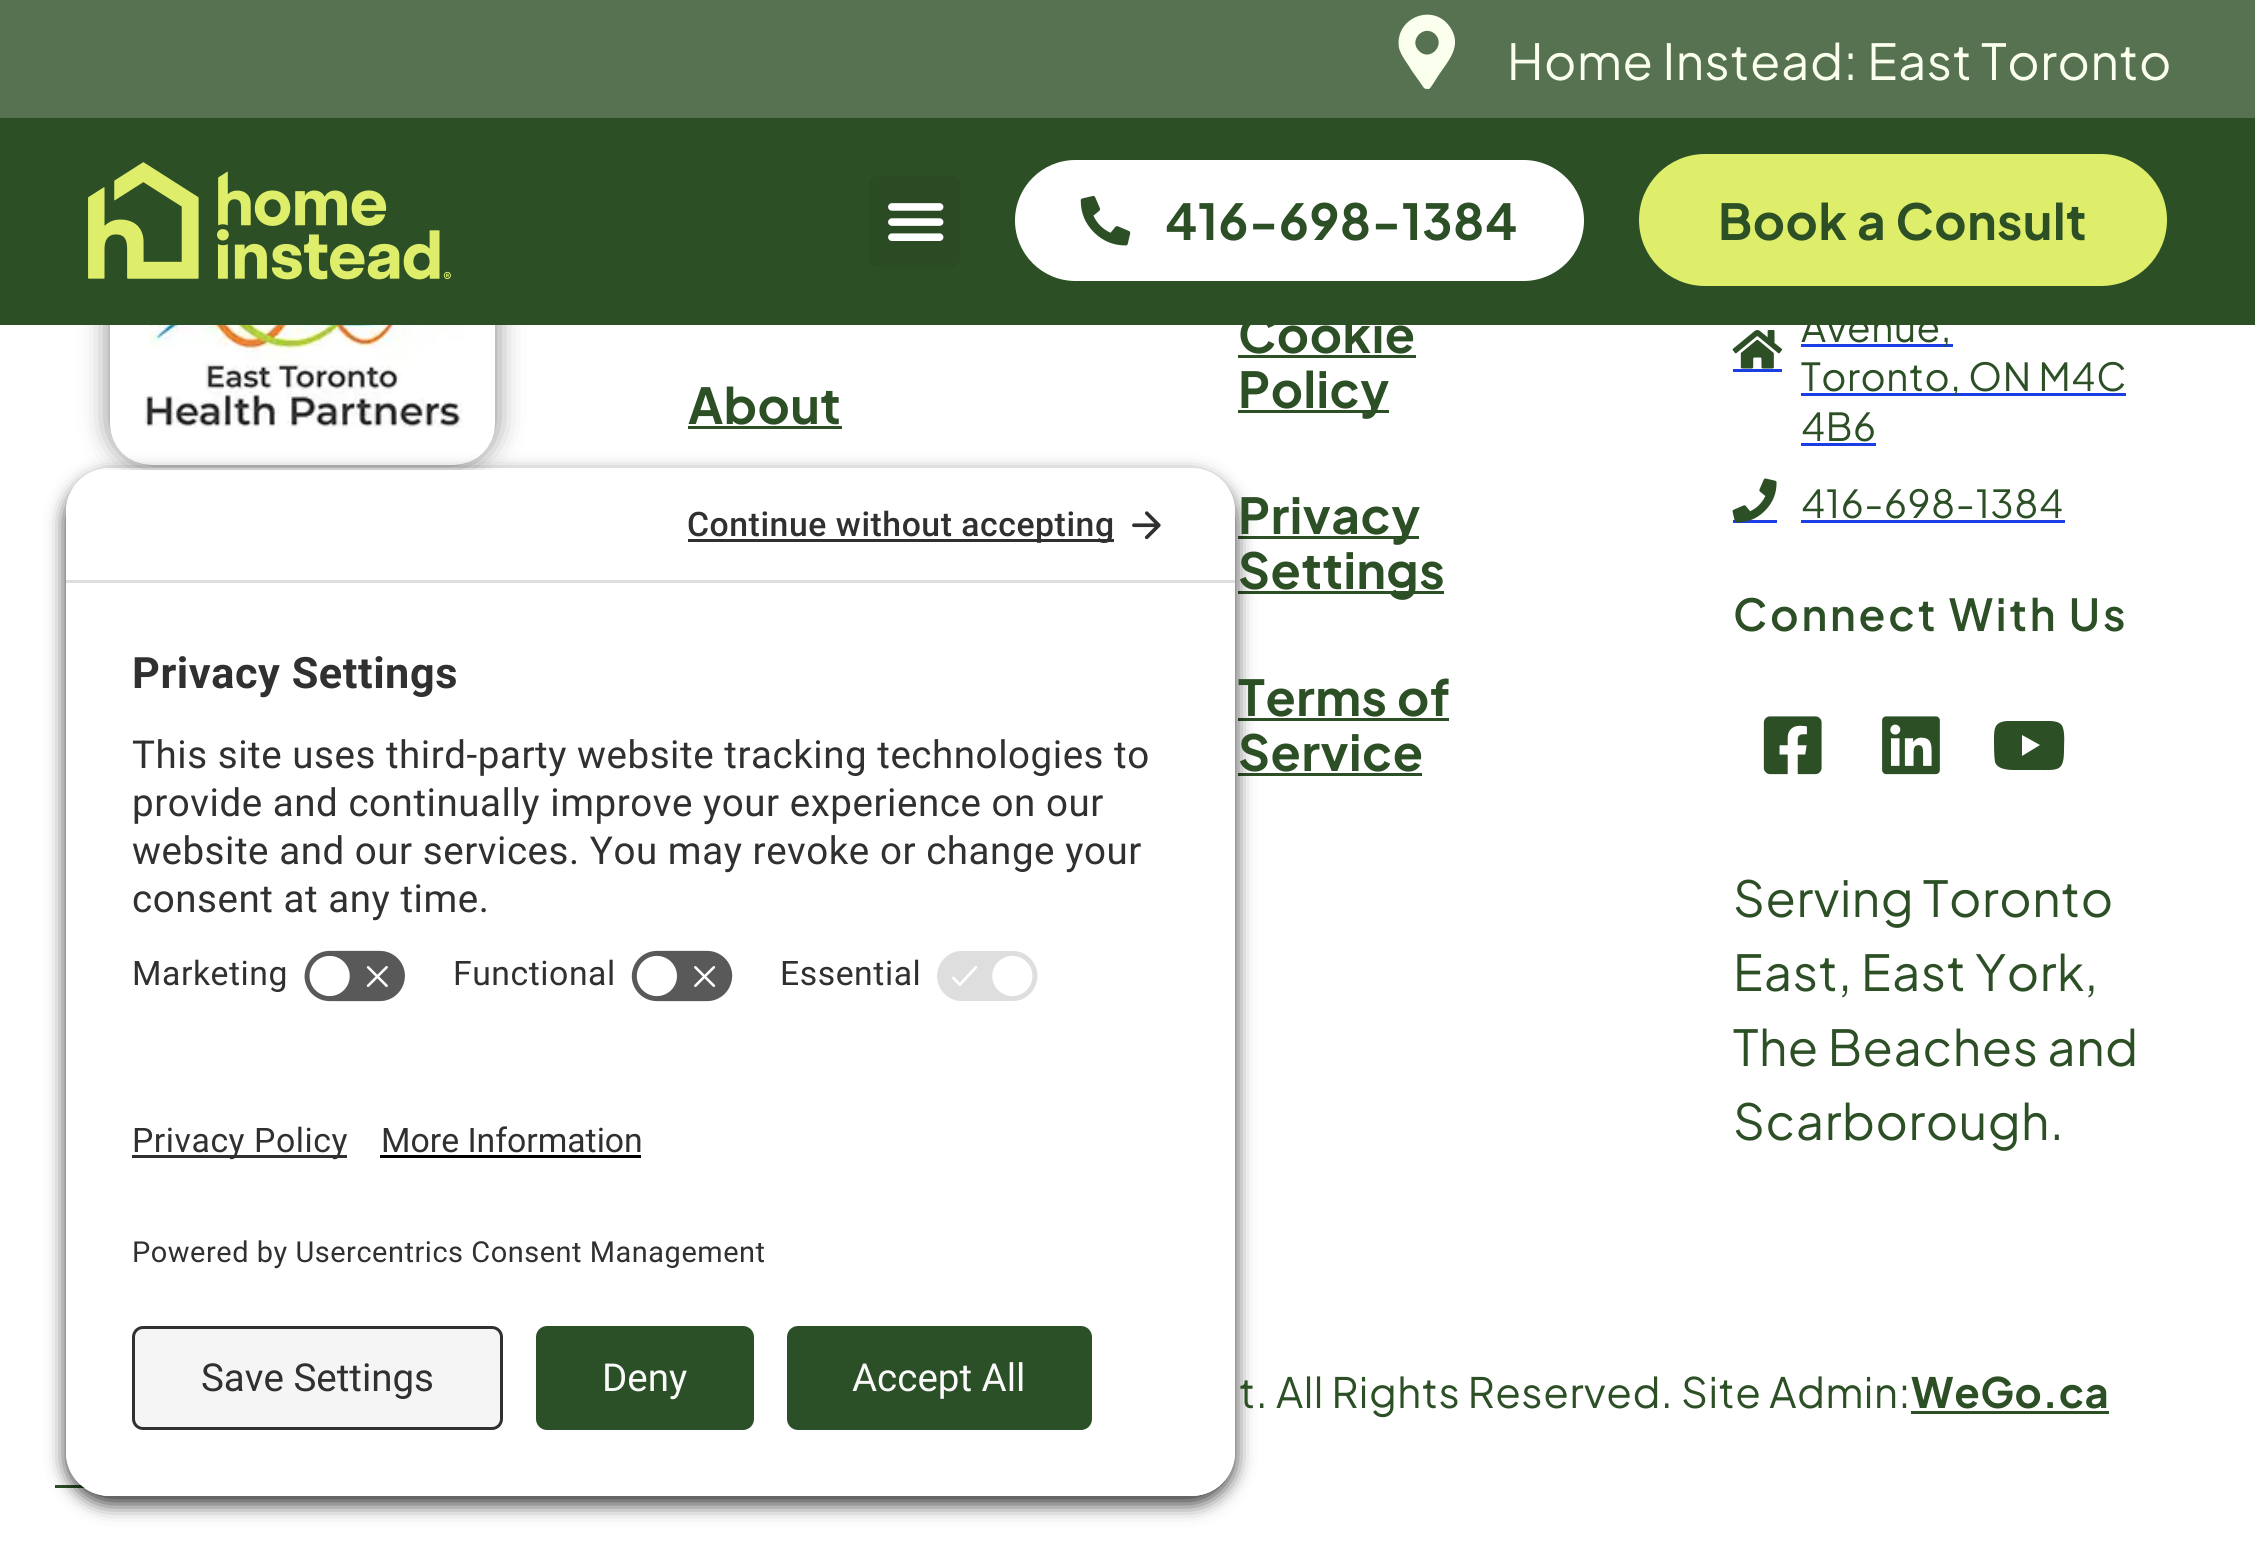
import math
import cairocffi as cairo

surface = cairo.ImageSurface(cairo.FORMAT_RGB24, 2255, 1560)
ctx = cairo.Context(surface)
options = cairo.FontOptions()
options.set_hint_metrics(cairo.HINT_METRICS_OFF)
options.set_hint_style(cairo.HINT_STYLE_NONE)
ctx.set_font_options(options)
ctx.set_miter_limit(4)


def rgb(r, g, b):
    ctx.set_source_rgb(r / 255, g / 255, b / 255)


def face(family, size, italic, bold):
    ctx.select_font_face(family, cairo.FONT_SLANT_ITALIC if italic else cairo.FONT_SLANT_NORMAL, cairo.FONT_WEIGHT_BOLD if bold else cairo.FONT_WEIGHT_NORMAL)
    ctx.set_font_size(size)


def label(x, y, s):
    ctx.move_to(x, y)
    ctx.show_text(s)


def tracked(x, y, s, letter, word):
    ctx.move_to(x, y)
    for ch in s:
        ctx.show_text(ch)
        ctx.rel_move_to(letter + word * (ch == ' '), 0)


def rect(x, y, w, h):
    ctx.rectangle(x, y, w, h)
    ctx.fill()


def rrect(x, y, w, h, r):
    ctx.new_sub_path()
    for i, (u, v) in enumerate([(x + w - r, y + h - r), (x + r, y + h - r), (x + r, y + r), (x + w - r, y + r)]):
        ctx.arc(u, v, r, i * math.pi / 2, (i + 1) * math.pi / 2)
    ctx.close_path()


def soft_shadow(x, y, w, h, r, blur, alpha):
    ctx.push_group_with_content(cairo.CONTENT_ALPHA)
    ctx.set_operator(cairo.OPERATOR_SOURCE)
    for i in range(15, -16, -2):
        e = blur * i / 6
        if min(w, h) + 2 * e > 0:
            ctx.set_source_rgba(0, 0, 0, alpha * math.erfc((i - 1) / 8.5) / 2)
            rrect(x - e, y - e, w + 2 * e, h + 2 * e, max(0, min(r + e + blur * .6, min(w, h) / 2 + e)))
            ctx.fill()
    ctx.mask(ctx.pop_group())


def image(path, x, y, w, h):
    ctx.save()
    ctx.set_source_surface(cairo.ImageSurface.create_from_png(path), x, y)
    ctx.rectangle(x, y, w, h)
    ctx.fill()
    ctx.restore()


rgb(255, 255, 255)
ctx.paint()
rgb(86, 114, 81)
rect(0, 0, 2255, 118)
rgb(250, 255, 238)
ctx.new_path()
ctx.move_to(1424, 88)
ctx.line_to(1412, 71)
ctx.curve_to(1408, 64, 1401, 56, 1399, 48)
ctx.curve_to(1394, 18, 1433, 2, 1450, 27)
ctx.curve_to(1463, 46, 1448, 61, 1438, 76)
ctx.curve_to(1436, 79, 1431, 88, 1429, 89)
ctx.curve_to(1427, 89, 1425, 89, 1424, 88)
ctx.close_path()
ctx.move_to(1419, 51)
ctx.curve_to(1430, 62, 1446, 45, 1435, 34)
ctx.curve_to(1424, 24, 1408, 40, 1419, 51)
ctx.close_path()
ctx.fill()
face('Plus Jakarta Sans', 49.5, 0, 0)
tracked(1507, 80, 'Home Instead: East Toronto', 0.55, 0)
rgb(0, 0, 0)
soft_shadow(110, 209, 385, 256, 41, 14, 0.5)
rgb(44, 79, 38)
rect(0, 118, 2255, 207)
image('image0.png', 88, 162, 363, 118)
rgb(42, 75, 36)
rrect(869, 176, 91, 91, 8)
ctx.fill()
image('image1.png', 888, 203, 56, 38)
rgb(255, 255, 255)
rrect(1015, 160, 569, 121, 60.5)
ctx.fill()
image('image2.png', 1080, 195, 51, 51)
face('Plus Jakarta Sans', 49.5, 0, 1)
rgb(44, 79, 38)
tracked(1165, 240, '416-698-1384', 0.55, 0)
rgb(222, 237, 106)
rrect(1643, 158, 520, 124, 62)
ctx.fill_preserve()
ctx.set_line_width(8)
ctx.stroke()
rgb(44, 79, 38)
tracked(1718, 240, 'Book a Consult', 0.55, 0)
image('image7.png', 110, 325, 385, 140)
rect(1238, 536, 181, 3)
rect(1238, 591, 206, 3)
rect(1238, 718, 211, 3)
rect(1238, 773, 184, 3)
rect(55, 1485, 30, 3)
ctx.save()
ctx.set_fill_rule(cairo.FILL_RULE_EVEN_ODD)
ctx.new_path()
ctx.move_to(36, 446)
ctx.line_to(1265, 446)
ctx.line_to(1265, 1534)
ctx.line_to(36, 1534)
ctx.close_path()
ctx.move_to(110, 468)
ctx.line_to(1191, 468)
ctx.curve_to(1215.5, 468, 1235, 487.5, 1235, 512)
ctx.line_to(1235, 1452)
ctx.curve_to(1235, 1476.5, 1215.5, 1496, 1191, 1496)
ctx.line_to(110, 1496)
ctx.curve_to(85.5, 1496, 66, 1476.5, 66, 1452)
ctx.line_to(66, 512)
ctx.curve_to(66, 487.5, 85.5, 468, 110, 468)
ctx.close_path()
ctx.clip()
rgb(0, 0, 0)
soft_shadow(66, 476, 1169, 1028, 44, 9.5, 0.8)
ctx.restore()
ctx.save()
ctx.new_path()
ctx.move_to(110, 468)
ctx.line_to(1191, 468)
ctx.curve_to(1215.5, 468, 1235, 487.5, 1235, 512)
ctx.line_to(1235, 1045)
ctx.line_to(66, 1045)
ctx.line_to(66, 512)
ctx.curve_to(66, 487.5, 85.5, 468, 110, 468)
ctx.close_path()
ctx.clip()
rgb(255, 255, 255)
rect(66, 470, 1169, 110)
ctx.restore()
rgb(222, 222, 222)
rect(66, 580, 1169, 3)
rgb(48, 48, 48)
rect(688, 539, 426, 3)
face('Roboto Medium', 33.75, 0, 0)
tracked(687, 536, 'Continue without accepting', 0.55, 0)
image('image3.png', 1132, 511, 29, 29)
rgb(255, 255, 255)
rect(1234, 583, 1, 462)
face('Roboto', 43.25, 0, 1)
rgb(48, 48, 48)
tracked(132, 688, 'Privacy Settings', 0.55, 0)
face('Roboto', 38.5, 0, 0)
tracked(132, 768, 'This site uses third-party website tracking technologies to', 0.55, 0)
tracked(132, 816, 'provide and continually improve your experience on our', 0.55, 0)
tracked(132, 864, 'website and our services. You may revoke or change your', 0.55, 0)
tracked(132, 912, 'consent at any time.', 0.55, 0)
face('Roboto', 33.75, 0, 0)
tracked(132, 985, 'Marketing', 0.55, 0)
image('image4.png', 304, 950, 101, 52)
tracked(453, 985, 'Functional', 0.55, 0)
image('image5.png', 631, 950, 102, 52)
tracked(780, 985, 'Essential', 0.55, 0)
image('image6.png', 937, 951, 101, 50)
rgb(255, 255, 255)
ctx.new_path()
ctx.move_to(66, 1045)
ctx.line_to(1235, 1045)
ctx.line_to(1235, 1452)
ctx.curve_to(1235, 1476.5, 1215.5, 1496, 1191, 1496)
ctx.line_to(110, 1496)
ctx.curve_to(85.5, 1496, 66, 1476.5, 66, 1452)
ctx.close_path()
ctx.fill()
rgb(48, 48, 48)
rect(132, 1155, 215, 3)
tracked(132, 1152, 'Privacy Policy', 0.55, 0)
label(381, 1152, 'More Information')
rgb(0, 0, 0)
rect(380, 1155, 261, 3)
face('Roboto', 28.9, 0, 0)
rgb(48, 48, 48)
tracked(132, 1262, 'Powered by Usercentrics Consent Management', 0.55, 0)
rgb(245, 245, 245)
rrect(133.5, 1327.5, 368, 101, 9.5)
ctx.fill_preserve()
rgb(48, 48, 48)
ctx.set_line_width(3)
ctx.stroke()
face('Roboto', 38.5, 0, 0)
label(201, 1391, 'Save Settings')
rgb(43, 79, 38)
rrect(536, 1326, 218, 104, 11)
ctx.fill()
rgb(250, 250, 250)
label(602, 1391, 'Deny')
rgb(43, 79, 38)
rrect(787, 1326, 305, 104, 11)
ctx.fill()
rgb(250, 250, 250)
label(852, 1391, 'Accept All')
face('Plus Jakarta Sans', 49.5, 0, 1)
rgb(44, 79, 38)
tracked(688, 424, 'About', 0.55, 0)
rect(688, 426, 154, 3)
tracked(1238, 353, 'Cookie', 0.55, 0)
rect(1238, 355, 178, 3)
rect(1238, 410, 151, 3)
tracked(1238, 408, 'Policy', 0.55, 0)
tracked(1238, 534, 'Privacy', 0.55, 0)
tracked(1238, 589, 'Settings', 0.55, 0)
tracked(1238, 716, 'Terms of', 0.55, 0)
tracked(1238, 771, 'Service', 0.55, 0)
image('image8.png', 1732, 330, 51, 39)
rgb(27, 62, 228)
rect(1733, 369, 49, 3)
rect(1801, 344, 152, 3)
face('Plus Jakarta Sans', 38.5, 0, 0)
rgb(44, 79, 38)
tracked(1801, 342, 'Avenue,', 0.55, 0)
rgb(27, 62, 228)
rect(1801, 393, 325, 3)
rgb(44, 79, 38)
tracked(1801, 391, 'Toronto, ON M4C', 0.55, 0)
tracked(1801, 441, '4B6', 0.55, 0)
rgb(27, 62, 228)
rect(1801, 443, 75, 3)
rect(1733, 520, 44, 3)
image('image9.png', 1732, 478, 45, 45)
rgb(44, 79, 38)
tracked(1801, 518, '416-698-1384', 0.55, 0)
rgb(27, 62, 228)
rect(1801, 520, 264, 3)
face('Plus Jakarta Sans SemiBold', 44, 0, 0)
rgb(44, 79, 38)
tracked(1733, 631, 'Connect With Us', 2.75, 0)
image('image10.png', 1763, 716, 59, 59)
image('image11.png', 1882, 716, 58, 59)
ctx.new_path()
ctx.move_to(2063, 728)
ctx.curve_to(2065, 735, 2064, 743, 2064, 750)
ctx.curve_to(2064, 772, 2058, 770, 2037, 770)
ctx.line_to(2019, 770)
ctx.curve_to(2013, 770, 1998, 771, 1995, 762)
ctx.curve_to(1994, 755, 1994, 748, 1994, 740)
ctx.curve_to(1994, 729, 1994, 722, 2007, 721)
ctx.line_to(2023, 721)
ctx.line_to(2044, 721)
ctx.curve_to(2050, 721, 2061, 720, 2063, 728)
ctx.close_path()
ctx.move_to(2022, 756)
ctx.line_to(2040, 745)
ctx.line_to(2022, 735)
ctx.close_path()
ctx.fill()
face('Plus Jakarta Sans', 49.5, 0, 0)
tracked(1733, 917, 'Serving Toronto', 0.55, 0)
tracked(1733, 991, 'East, East York,', 0.55, 0)
tracked(1733, 1066, 'The Beaches and', 0.55, 0)
tracked(1733, 1140, 'Scarborough.', 0.55, 0)
face('Plus Jakarta Sans', 41.75, 0, 0)
tracked(1239, 1408, 't. All Rights Reserved. Site Admin:', 0.55, 0)
rect(1911, 1411, 198, 3)
face('Plus Jakarta Sans', 41.75, 0, 1)
tracked(1911, 1408, 'WeGo.ca', 0.55, 0)
surface.write_to_png('render.png')
